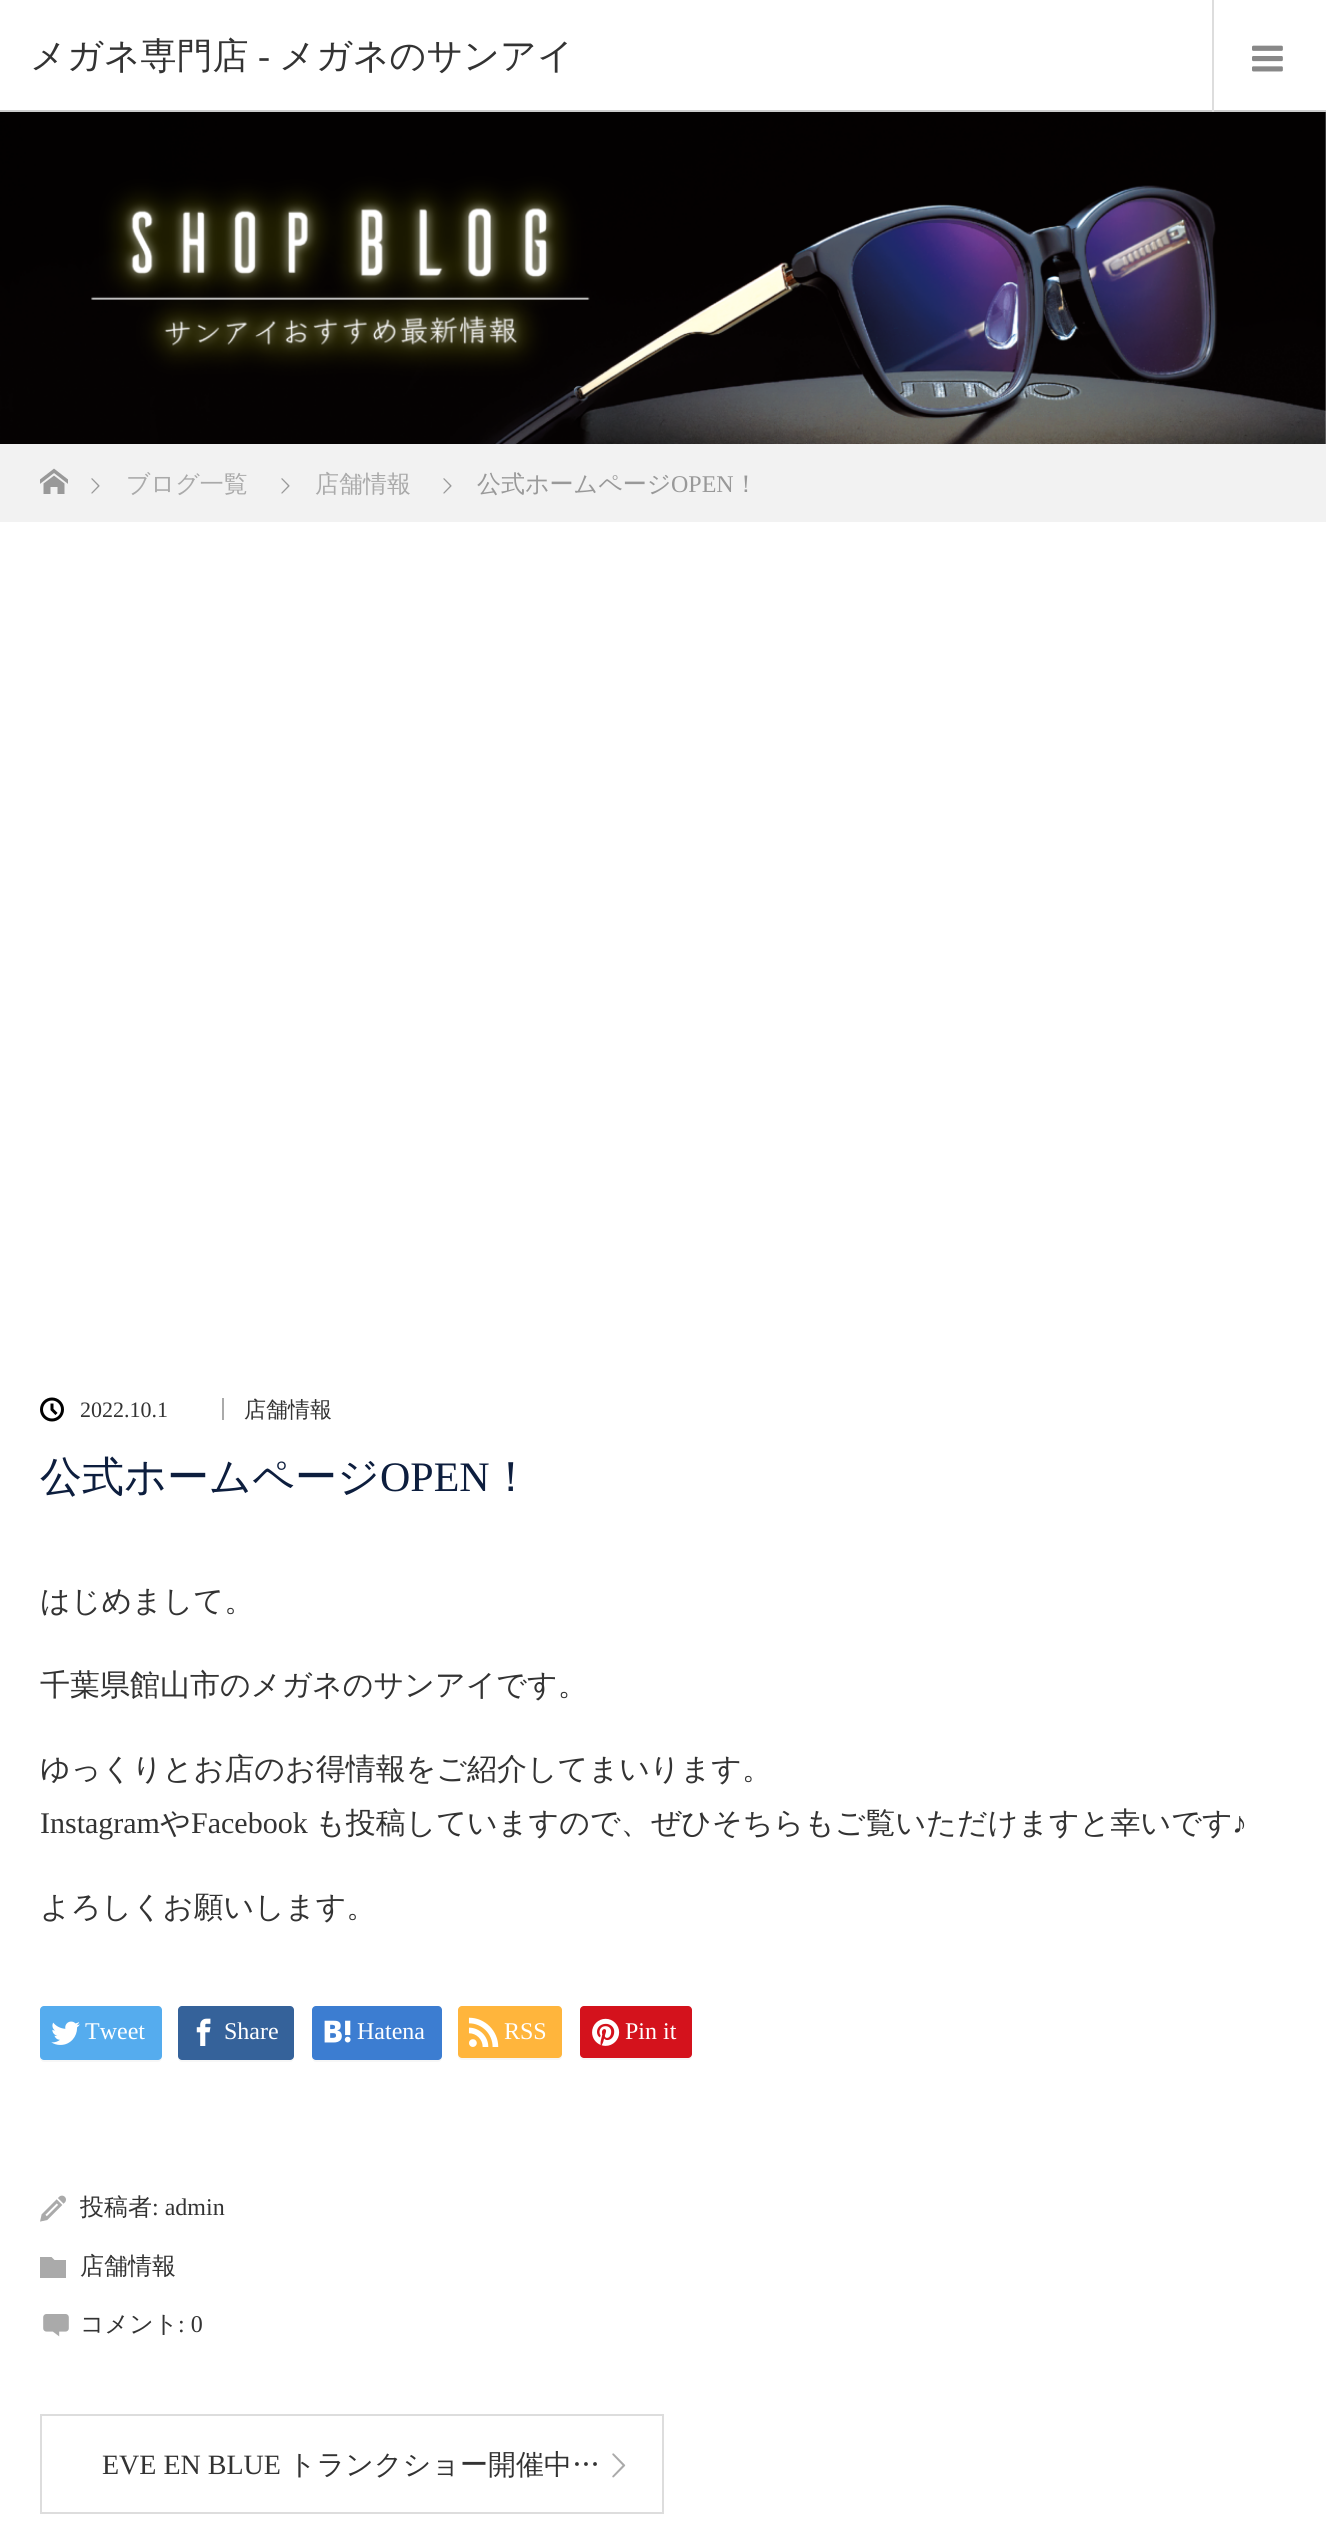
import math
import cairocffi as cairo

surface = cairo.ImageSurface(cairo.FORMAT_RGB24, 1326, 2547)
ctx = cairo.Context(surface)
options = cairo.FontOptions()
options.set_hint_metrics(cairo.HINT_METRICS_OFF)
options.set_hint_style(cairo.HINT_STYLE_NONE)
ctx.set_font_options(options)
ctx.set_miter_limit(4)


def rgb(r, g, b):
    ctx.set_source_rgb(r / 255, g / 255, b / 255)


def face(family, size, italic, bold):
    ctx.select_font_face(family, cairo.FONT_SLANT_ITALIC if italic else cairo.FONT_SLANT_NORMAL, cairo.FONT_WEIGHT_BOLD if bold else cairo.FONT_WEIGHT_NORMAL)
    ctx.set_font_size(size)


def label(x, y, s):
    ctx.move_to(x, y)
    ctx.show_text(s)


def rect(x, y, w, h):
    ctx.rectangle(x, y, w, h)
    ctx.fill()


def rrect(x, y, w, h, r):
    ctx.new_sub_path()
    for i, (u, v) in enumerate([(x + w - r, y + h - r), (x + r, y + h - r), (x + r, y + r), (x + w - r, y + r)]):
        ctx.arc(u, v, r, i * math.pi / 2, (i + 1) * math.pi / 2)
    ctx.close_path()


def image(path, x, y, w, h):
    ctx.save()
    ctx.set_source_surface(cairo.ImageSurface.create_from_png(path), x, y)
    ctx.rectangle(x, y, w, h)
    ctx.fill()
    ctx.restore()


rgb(255, 255, 255)
ctx.paint()
rgb(204, 204, 204)
rect(0, 110, 1326, 2)
face('WenQuanYi Zen Hei Medium', 36, 0, 0)
rgb(51, 51, 51)
label(30, 68, 'メガネ専門店')
face('Liberation Serif', 36, 0, 0)
label(258, 68, '-')
face('WenQuanYi Zen Hei Medium', 36, 0, 0)
label(279, 68, 'メガネのサンアイ')
rgb(221, 221, 221)
rect(1212, 0, 2, 112)
image('image0.png', 1252, 45, 31, 27)
image('image1.png', 0, 112, 1326, 332)
rgb(242, 242, 242)
rect(0, 444, 1326, 78)
image('image2.png', 40, 468, 28, 26)
image('image3.png', 91, 478, 9, 16)
face('WenQuanYi Zen Hei Medium', 24, 0, 0)
rgb(170, 170, 170)
label(126, 492, 'ブログ一覧')
image('image3.png', 281, 478, 9, 16)
label(315, 492, '店舗情報')
image('image3.png', 443, 478, 9, 16)
rgb(153, 153, 153)
label(477, 492, '公式ホームページ')
face('Liberation Serif', 24, 0, 0)
label(671, 492, 'OPEN')
face('WenQuanYi Zen Hei Medium', 24, 0, 0)
label(734, 492, '！')
image('image4.png', 40, 1397, 24, 25)
face('Liberation Serif', 22, 0, 0)
rgb(51, 51, 51)
label(80, 1417, '2022.10.1')
rgb(170, 170, 170)
rect(222, 1398, 2, 22)
face('WenQuanYi Zen Hei Medium', 22, 0, 0)
rgb(51, 51, 51)
label(244, 1417, '店舗情報')
face('WenQuanYi Zen Hei Medium', 42, 0, 0)
rgb(13, 30, 62)
label(40, 1491, '公式ホームページ')
face('Liberation Serif', 42, 0, 0)
label(380, 1491, 'OPEN')
face('WenQuanYi Zen Hei Medium', 42, 0, 0)
label(490, 1491, '！')
face('WenQuanYi Zen Hei Medium', 30, 0, 0)
rgb(51, 51, 51)
label(40, 1611, 'はじめまして。')
label(40, 1695, '千葉県館山市のメガネのサンアイです。')
label(40, 1779, 'ゆっくりとお店のお得情報をご紹介してまいります。')
face('Liberation Serif', 30, 0, 0)
label(40, 1833, 'Instagram')
face('WenQuanYi Zen Hei Medium', 30, 0, 0)
label(160, 1833, 'や')
face('Liberation Serif', 30, 0, 0)
label(191, 1833, 'Facebook')
face('WenQuanYi Zen Hei Medium', 30, 0, 0)
label(315, 1833, 'も投稿していますので、ぜひそちらもご覧いただけますと幸いです')
face('Liberation Serif', 30, 0, 0)
label(1232, 1833, '♪')
face('WenQuanYi Zen Hei Medium', 30, 0, 0)
label(40, 1917, 'よろしくお願いします。')
rgb(247, 247, 247)
ctx.new_path()
ctx.move_to(40, 2056)
ctx.line_to(40, 2058)
ctx.curve_to(40, 2060, 42, 2062, 44, 2062)
ctx.line_to(158, 2062)
ctx.curve_to(160, 2062, 162, 2060, 162, 2058)
ctx.line_to(162, 2056)
ctx.curve_to(162, 2058, 160, 2060, 158, 2060)
ctx.line_to(44, 2060)
ctx.curve_to(42, 2060, 40, 2058, 40, 2056)
ctx.close_path()
ctx.fill()
rgb(85, 172, 238)
rrect(40, 2006, 122, 54, 4)
ctx.fill()
image('image5.png', 51, 2021, 29, 24)
face('Liberation Serif', 24, 0, 0)
rgb(255, 255, 255)
label(85, 2039, 'Tweet')
rgb(247, 247, 247)
ctx.new_path()
ctx.move_to(178, 2056)
ctx.line_to(178, 2058)
ctx.curve_to(178, 2060, 180, 2062, 182, 2062)
ctx.line_to(290, 2062)
ctx.curve_to(292, 2062, 294, 2060, 294, 2058)
ctx.line_to(294, 2056)
ctx.curve_to(294, 2058, 292, 2060, 290, 2060)
ctx.line_to(182, 2060)
ctx.curve_to(180, 2060, 178, 2058, 178, 2056)
ctx.close_path()
ctx.fill()
rgb(53, 98, 154)
rrect(178, 2006, 116, 54, 4)
ctx.fill()
image('image6.png', 196, 2018, 15, 28)
rgb(255, 255, 255)
label(224, 2039, 'Share')
rgb(247, 247, 247)
ctx.new_path()
ctx.move_to(312, 2056)
ctx.line_to(312, 2058)
ctx.curve_to(312, 2060, 314, 2062, 316, 2062)
ctx.line_to(438, 2062)
ctx.curve_to(440, 2062, 442, 2060, 442, 2058)
ctx.line_to(442, 2056)
ctx.curve_to(442, 2058, 440, 2060, 438, 2060)
ctx.line_to(316, 2060)
ctx.curve_to(314, 2060, 312, 2058, 312, 2056)
ctx.close_path()
ctx.fill()
rgb(60, 125, 209)
rrect(312, 2006, 130, 54, 4)
ctx.fill()
image('image7.png', 324, 2020, 27, 23)
rgb(255, 255, 255)
label(357, 2039, 'Hatena')
rgb(247, 247, 247)
ctx.new_path()
ctx.move_to(458, 2054)
ctx.line_to(458, 2056)
ctx.curve_to(458, 2058, 460, 2060, 462, 2060)
ctx.line_to(558, 2060)
ctx.curve_to(560, 2060, 562, 2058, 562, 2056)
ctx.line_to(562, 2054)
ctx.curve_to(562, 2056, 560, 2058, 558, 2058)
ctx.line_to(462, 2058)
ctx.curve_to(460, 2058, 458, 2056, 458, 2054)
ctx.close_path()
ctx.fill()
rgb(255, 181, 60)
rrect(458, 2006, 104, 52, 4)
ctx.fill()
image('image8.png', 468, 2017, 31, 30)
rgb(255, 255, 255)
label(504, 2039, 'RSS')
rgb(247, 247, 247)
ctx.new_path()
ctx.move_to(580, 2054)
ctx.line_to(580, 2056)
ctx.curve_to(580, 2058, 582, 2060, 584, 2060)
ctx.line_to(688, 2060)
ctx.curve_to(690, 2060, 692, 2058, 692, 2056)
ctx.line_to(692, 2054)
ctx.curve_to(692, 2056, 690, 2058, 688, 2058)
ctx.line_to(584, 2058)
ctx.curve_to(582, 2058, 580, 2056, 580, 2054)
ctx.close_path()
ctx.fill()
rgb(212, 18, 28)
rrect(580, 2006, 112, 52, 4)
ctx.fill()
image('image9.png', 592, 2018, 28, 28)
rgb(255, 255, 255)
label(625, 2039, 'Pin it')
image('image10.png', 40, 2195, 26, 27)
face('WenQuanYi Zen Hei Medium', 24, 0, 0)
rgb(51, 51, 51)
label(80, 2215, '投稿者')
face('Liberation Serif', 24, 0, 0)
label(152, 2215, ': admin')
rgb(170, 170, 170)
ctx.new_path()
ctx.move_to(51.5, 2257)
ctx.line_to(54.5, 2260)
ctx.line_to(66, 2260)
ctx.line_to(66, 2278)
ctx.line_to(40, 2278)
ctx.line_to(40, 2257)
ctx.close_path()
ctx.fill()
face('WenQuanYi Zen Hei Medium', 24, 0, 0)
rgb(51, 51, 51)
label(80, 2274, '店舗情報')
image('image11.png', 43, 2314, 26, 23)
label(80, 2332, 'コメント')
face('Liberation Serif', 24, 0, 0)
label(178, 2332, ': 0')
ctx.rectangle(41, 2415, 622, 98)
rgb(221, 221, 221)
ctx.stroke()
face('Liberation Serif', 28, 0, 0)
rgb(51, 51, 51)
label(102, 2474, 'EVE EN BLUE')
face('WenQuanYi Zen Hei Medium', 28, 0, 0)
label(288, 2474, 'トランクショー開催中…')
image('image12.png', 612, 2453, 14, 25)
surface.write_to_png('render.png')
